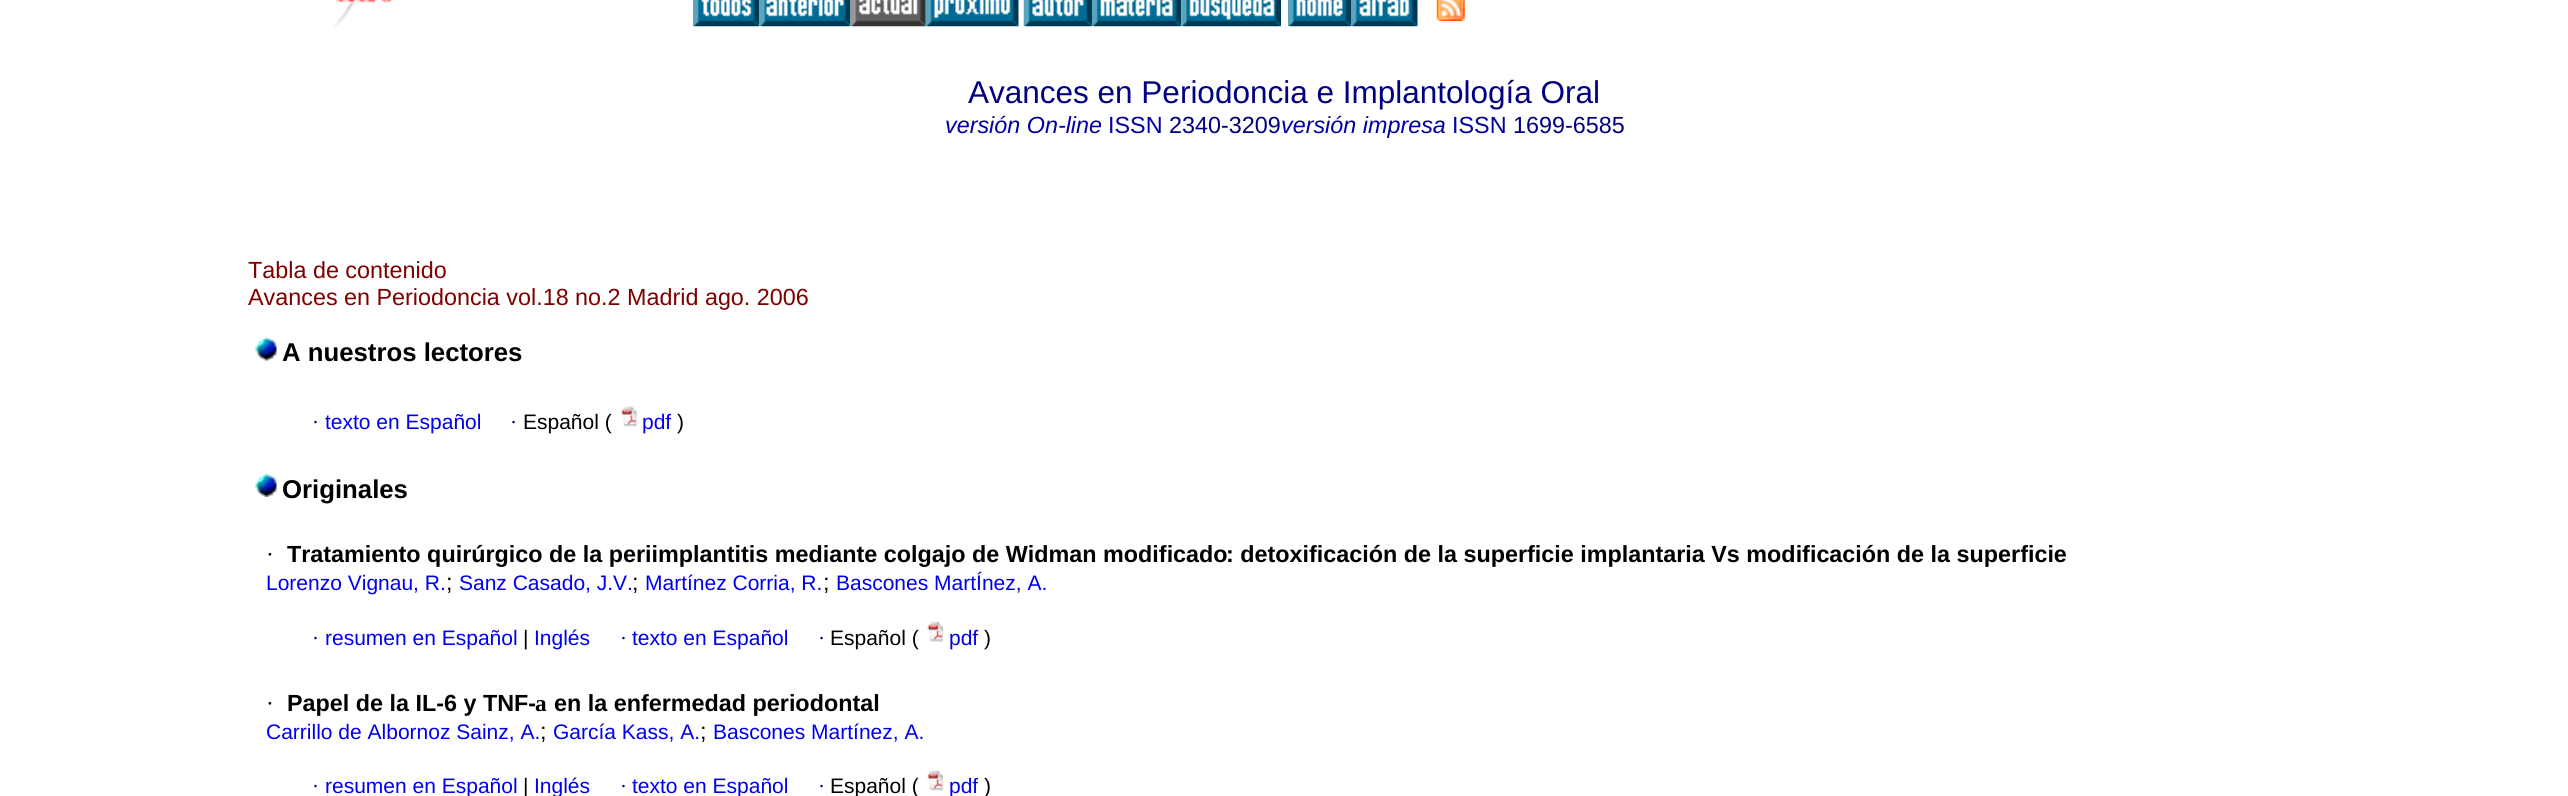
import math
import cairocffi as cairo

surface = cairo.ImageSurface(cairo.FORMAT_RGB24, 2568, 796)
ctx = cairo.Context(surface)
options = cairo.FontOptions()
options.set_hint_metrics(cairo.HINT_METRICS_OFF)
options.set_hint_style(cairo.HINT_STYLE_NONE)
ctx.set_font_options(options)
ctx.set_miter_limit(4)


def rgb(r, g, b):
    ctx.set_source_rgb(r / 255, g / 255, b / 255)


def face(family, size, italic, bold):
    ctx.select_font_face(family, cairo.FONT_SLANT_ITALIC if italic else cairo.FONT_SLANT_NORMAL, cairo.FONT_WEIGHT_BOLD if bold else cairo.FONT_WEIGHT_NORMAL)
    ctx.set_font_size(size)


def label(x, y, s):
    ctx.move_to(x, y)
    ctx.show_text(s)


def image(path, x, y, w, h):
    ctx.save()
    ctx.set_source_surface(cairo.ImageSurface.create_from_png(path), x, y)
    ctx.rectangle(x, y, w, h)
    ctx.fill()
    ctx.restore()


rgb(255, 255, 255)
ctx.paint()
image('image0.png', 333, 0, 60, 28)
image('image1.png', 693, 0, 67, 27)
image('image2.png', 759, 0, 92, 27)
image('image3.png', 850, 0, 76, 27)
image('image4.png', 925, 0, 94, 27)
image('image5.png', 1023, 0, 69, 27)
image('image6.png', 1092, 0, 90, 27)
image('image7.png', 1181, 0, 100, 27)
image('image8.png', 1288, 0, 63, 27)
image('image9.png', 1351, 0, 67, 27)
image('image10.png', 1436, 0, 29, 21)
face('Liberation Sans', 31.5, 0, 0)
rgb(0, 0, 128)
label(968, 103, 'Avances en Periodoncia e Implantología Oral')
face('Liberation Sans', 23.35, 1, 0)
rgb(0, 0, 160)
label(945, 133, 'versión On-line')
face('Liberation Sans', 23.35, 0, 0)
label(1108, 133, 'ISSN')
rgb(0, 0, 128)
label(1169, 133, '2340-3209')
face('Liberation Sans', 23.35, 1, 0)
rgb(0, 0, 160)
label(1281, 133, 'versión impresa')
face('Liberation Sans', 23.35, 0, 0)
label(1452, 133, 'ISSN')
rgb(0, 0, 128)
label(1513, 133, '1699-6585')
rgb(128, 0, 0)
label(248, 278, 'Tabla de contenido')
label(248, 305, 'Avances en Periodoncia vol.18 no.2 Madrid ago. 2006')
image('image11.png', 255, 337, 22, 24)
face('Liberation Sans', 25.75, 0, 1)
rgb(0, 0, 0)
label(282, 361, 'A nuestros lectores')
face('Liberation Serif', 21, 0, 0)
rgb(0, 0, 128)
label(312, 429, '·')
face('Liberation Sans', 21, 0, 0)
rgb(0, 0, 238)
label(325, 429, 'texto en Español')
face('Liberation Serif', 21, 0, 0)
rgb(0, 0, 128)
label(510, 429, '·')
face('Liberation Sans', 21, 0, 0)
rgb(0, 0, 0)
label(523, 429, 'Español (')
image('image12.png', 621, 406, 17, 21)
rgb(0, 0, 238)
label(642, 429, 'pdf')
rgb(0, 0, 0)
label(677, 429, ')')
image('image13.png', 255, 474, 22, 23)
face('Liberation Sans', 25.75, 0, 1)
label(282, 498, 'Originales')
face('Liberation Serif', 23.35, 0, 0)
label(266, 562, '·')
face('Liberation Sans', 23.35, 0, 1)
label(287, 562, 'Tratamiento quirúrgico de la periimplantitis mediante colgajo de Widman modificado')
label(1226, 562, ': detoxificación de la superficie implantaria Vs modificación de la superficie')
face('Liberation Sans', 21, 0, 0)
rgb(0, 0, 238)
label(266, 590, 'Lorenzo Vignau, R.')
face('Liberation Sans', 23.35, 0, 0)
rgb(0, 0, 0)
label(446, 590, ';')
face('Liberation Sans', 21, 0, 0)
rgb(0, 0, 238)
label(459, 590, 'Sanz Casado, J.V.')
face('Liberation Sans', 23.35, 0, 0)
rgb(0, 0, 0)
label(632, 590, ';')
face('Liberation Sans', 21, 0, 0)
rgb(0, 0, 238)
label(645, 590, 'Martínez Corria, R.')
face('Liberation Sans', 23.35, 0, 0)
rgb(0, 0, 0)
label(823, 590, ';')
face('Liberation Sans', 21, 0, 0)
rgb(0, 0, 238)
label(836, 590, 'Bascones MartÍnez, A.')
face('Liberation Serif', 21, 0, 0)
rgb(0, 0, 128)
label(312, 645, '·')
face('Liberation Sans', 21, 0, 0)
rgb(0, 0, 238)
label(325, 645, 'resumen en Español')
rgb(0, 0, 0)
label(523, 645, '|')
rgb(0, 0, 238)
label(534, 645, 'Inglés')
face('Liberation Serif', 21, 0, 0)
rgb(0, 0, 128)
label(620, 645, '·')
face('Liberation Sans', 21, 0, 0)
rgb(0, 0, 238)
label(632, 645, 'texto en Español')
face('Liberation Serif', 21, 0, 0)
rgb(0, 0, 128)
label(818, 645, '·')
face('Liberation Sans', 21, 0, 0)
rgb(0, 0, 0)
label(830, 645, 'Español (')
image('image14.png', 927, 621, 17, 21)
rgb(0, 0, 238)
label(949, 645, 'pdf')
rgb(0, 0, 0)
label(984, 645, ')')
face('Liberation Serif', 23.35, 0, 0)
label(266, 711, '·')
face('Liberation Sans', 23.35, 0, 1)
label(287, 711, 'Papel de la IL-6 y TNF-')
face('Liberation Serif', 23.35, 0, 1)
label(535, 711, 'a')
face('Liberation Sans', 23.35, 0, 1)
label(554, 711, 'en la enfermedad periodontal')
face('Liberation Sans', 21, 0, 0)
rgb(0, 0, 238)
label(266, 739, 'Carrillo de Albornoz Sainz, A.')
face('Liberation Sans', 23.35, 0, 0)
rgb(0, 0, 0)
label(540, 739, ';')
face('Liberation Sans', 21, 0, 0)
rgb(0, 0, 238)
label(553, 739, 'García Kass, A.')
face('Liberation Sans', 23.35, 0, 0)
rgb(0, 0, 0)
label(700, 739, ';')
face('Liberation Sans', 21, 0, 0)
rgb(0, 0, 238)
label(713, 739, 'Bascones Martínez, A.')
face('Liberation Serif', 21, 0, 0)
rgb(0, 0, 128)
label(312, 793, '·')
face('Liberation Sans', 21, 0, 0)
rgb(0, 0, 238)
label(325, 793, 'resumen en Español')
rgb(0, 0, 0)
label(523, 793, '|')
rgb(0, 0, 238)
label(534, 793, 'Inglés')
face('Liberation Serif', 21, 0, 0)
rgb(0, 0, 128)
label(620, 793, '·')
face('Liberation Sans', 21, 0, 0)
rgb(0, 0, 238)
label(632, 793, 'texto en Español')
face('Liberation Serif', 21, 0, 0)
rgb(0, 0, 128)
label(818, 793, '·')
face('Liberation Sans', 21, 0, 0)
rgb(0, 0, 0)
label(830, 793, 'Español (')
image('image15.png', 927, 770, 17, 21)
rgb(0, 0, 238)
label(949, 793, 'pdf')
rgb(0, 0, 0)
label(984, 793, ')')
surface.write_to_png('render.png')
